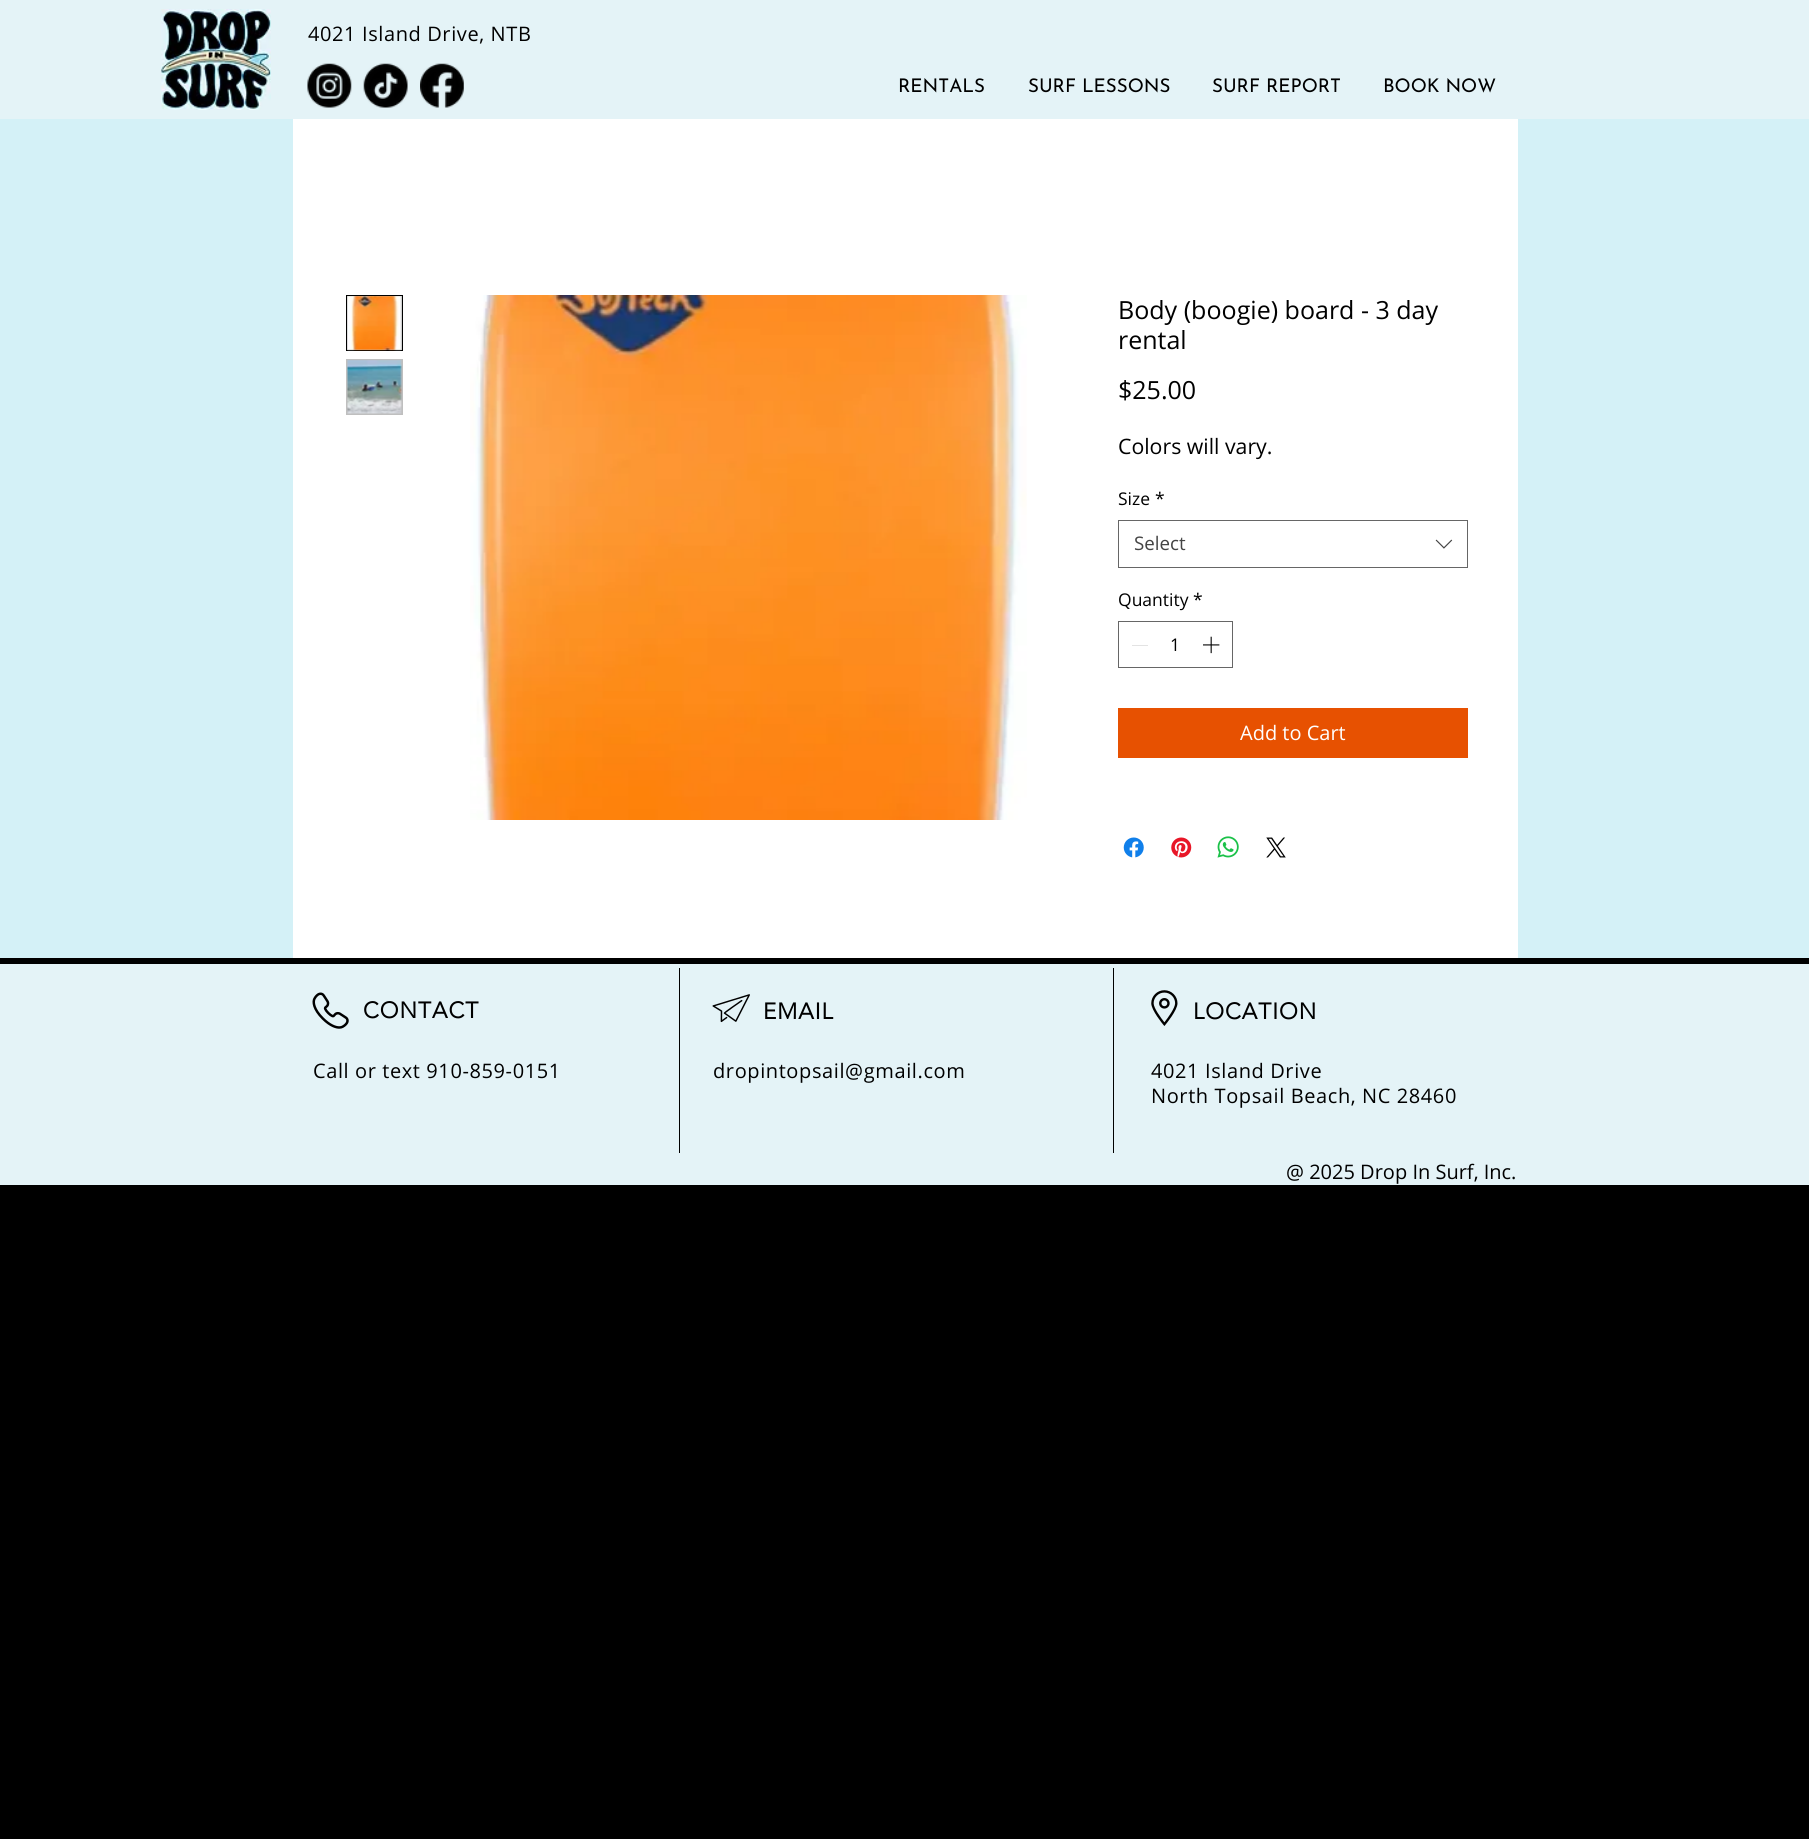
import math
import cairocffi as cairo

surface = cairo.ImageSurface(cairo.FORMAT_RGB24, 1809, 1839)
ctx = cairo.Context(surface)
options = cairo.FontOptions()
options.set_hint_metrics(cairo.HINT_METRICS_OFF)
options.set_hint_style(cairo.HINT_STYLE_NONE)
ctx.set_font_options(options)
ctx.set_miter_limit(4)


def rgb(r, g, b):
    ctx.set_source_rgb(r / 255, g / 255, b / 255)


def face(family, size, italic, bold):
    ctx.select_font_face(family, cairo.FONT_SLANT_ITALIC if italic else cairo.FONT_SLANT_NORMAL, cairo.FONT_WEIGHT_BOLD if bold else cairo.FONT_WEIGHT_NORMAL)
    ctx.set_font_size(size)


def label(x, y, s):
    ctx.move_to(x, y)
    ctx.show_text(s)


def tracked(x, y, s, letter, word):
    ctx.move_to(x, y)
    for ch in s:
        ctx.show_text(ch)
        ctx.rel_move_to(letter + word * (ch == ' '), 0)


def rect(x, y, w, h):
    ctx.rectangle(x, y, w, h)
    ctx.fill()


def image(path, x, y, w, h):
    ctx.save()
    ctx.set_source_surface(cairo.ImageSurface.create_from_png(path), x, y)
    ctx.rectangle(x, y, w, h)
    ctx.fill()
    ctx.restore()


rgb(0, 0, 0)
ctx.paint()
rgb(228, 243, 247)
rect(0, 0, 1809, 119)
image('image0.png', 161, 9, 110, 101)
face('Open Sans', 20, 0, 0)
rgb(0, 0, 0)
tracked(308, 41, '4021 Island Drive, NTB', 0.6, 0)
image('image1.png', 307, 63, 45, 45)
image('image2.png', 363, 63, 45, 45)
image('image3.png', 420, 63, 44, 45)
face('Josefin Sans Thin', 18.75, 0, 0)
label(898, 92, 'RENTALS')
label(1028, 92, 'SURF LESSONS')
label(1212, 92, 'SURF REPORT')
label(1383, 92, 'BOOK NOW')
rgb(212, 241, 247)
rect(0, 119, 1809, 839)
rgb(255, 255, 255)
rect(293, 119, 1225, 839)
rgb(191, 191, 191)
ctx.rectangle(346.5, 295.5, 56, 55)
ctx.fill_preserve()
rgb(0, 0, 0)
ctx.set_line_width(1)
ctx.stroke()
image('image4.png', 347, 296, 55, 55)
rgb(191, 191, 191)
rect(346, 359, 57, 56)
image('image5.png', 347, 360, 55, 54)
image('image6.png', 470, 295, 557, 525)
face('Open Sans', 25, 0, 0)
rgb(0, 0, 0)
label(1118, 319, 'Body (boogie) board - 3 day')
label(1118, 349, 'rental')
label(1118, 399, '$25.00')
face('Open Sans', 21.25, 0, 0)
label(1118, 454, 'Colors will vary.')
face('Open Sans', 17.5, 0, 0)
label(1118, 505, 'Size')
label(1155, 505, '*')
ctx.rectangle(1118.5, 520.5, 349, 47)
rgb(102, 102, 102)
ctx.stroke()
face('Open Sans', 18.75, 0, 0)
rgb(68, 68, 68)
label(1134, 550, 'Select')
image('image7.png', 1435, 539, 18, 10)
face('Open Sans', 17.5, 0, 0)
rgb(0, 0, 0)
label(1118, 606, 'Quantity')
label(1193, 606, '*')
ctx.rectangle(1118.5, 621.5, 114, 46)
rgb(102, 102, 102)
ctx.stroke()
rgb(227, 227, 227)
rect(1132, 645, 16, 1)
rgb(0, 0, 0)
label(1170, 651, '1')
image('image8.png', 1203, 636, 17, 18)
rgb(231, 81, 1)
rect(1118, 708, 350, 50)
face('Open Sans', 20, 0, 0)
rgb(255, 255, 255)
label(1240, 740, 'Add to Cart')
image('image9.png', 1123, 837, 21, 21)
image('image10.png', 1171, 837, 21, 21)
image('image11.png', 1217, 836, 22, 22)
image('image12.png', 1266, 837, 20, 21)
rgb(228, 243, 247)
rect(0, 964, 1809, 221)
image('image13.png', 312, 992, 37, 37)
face('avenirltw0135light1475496', 22.5, 0, 1)
rgb(0, 0, 0)
tracked(363, 1018, 'CONTACT', 1, 0)
rect(679, 968, 1, 185)
image('image14.png', 712, 994, 38, 29)
tracked(763, 1019, 'EMAIL', 1, 0)
rect(1113, 968, 1, 185)
image('image15.png', 1151, 990, 27, 36)
tracked(1193, 1019, 'LOCATION', 1, 0)
face('Open Sans', 20, 0, 0)
tracked(313, 1078, 'Call or text 910-859-0151', 0.6, 0)
tracked(713, 1078, 'dropintopsail@gmail.com', 0.6, 0)
tracked(1151, 1078, '4021 Island Drive', 0.6, 0)
tracked(1151, 1103, 'North Topsail Beach, NC 28460', 0.6, 0)
label(1286, 1179, '@ 2025 Drop In Surf, Inc.')
surface.write_to_png('render.png')
